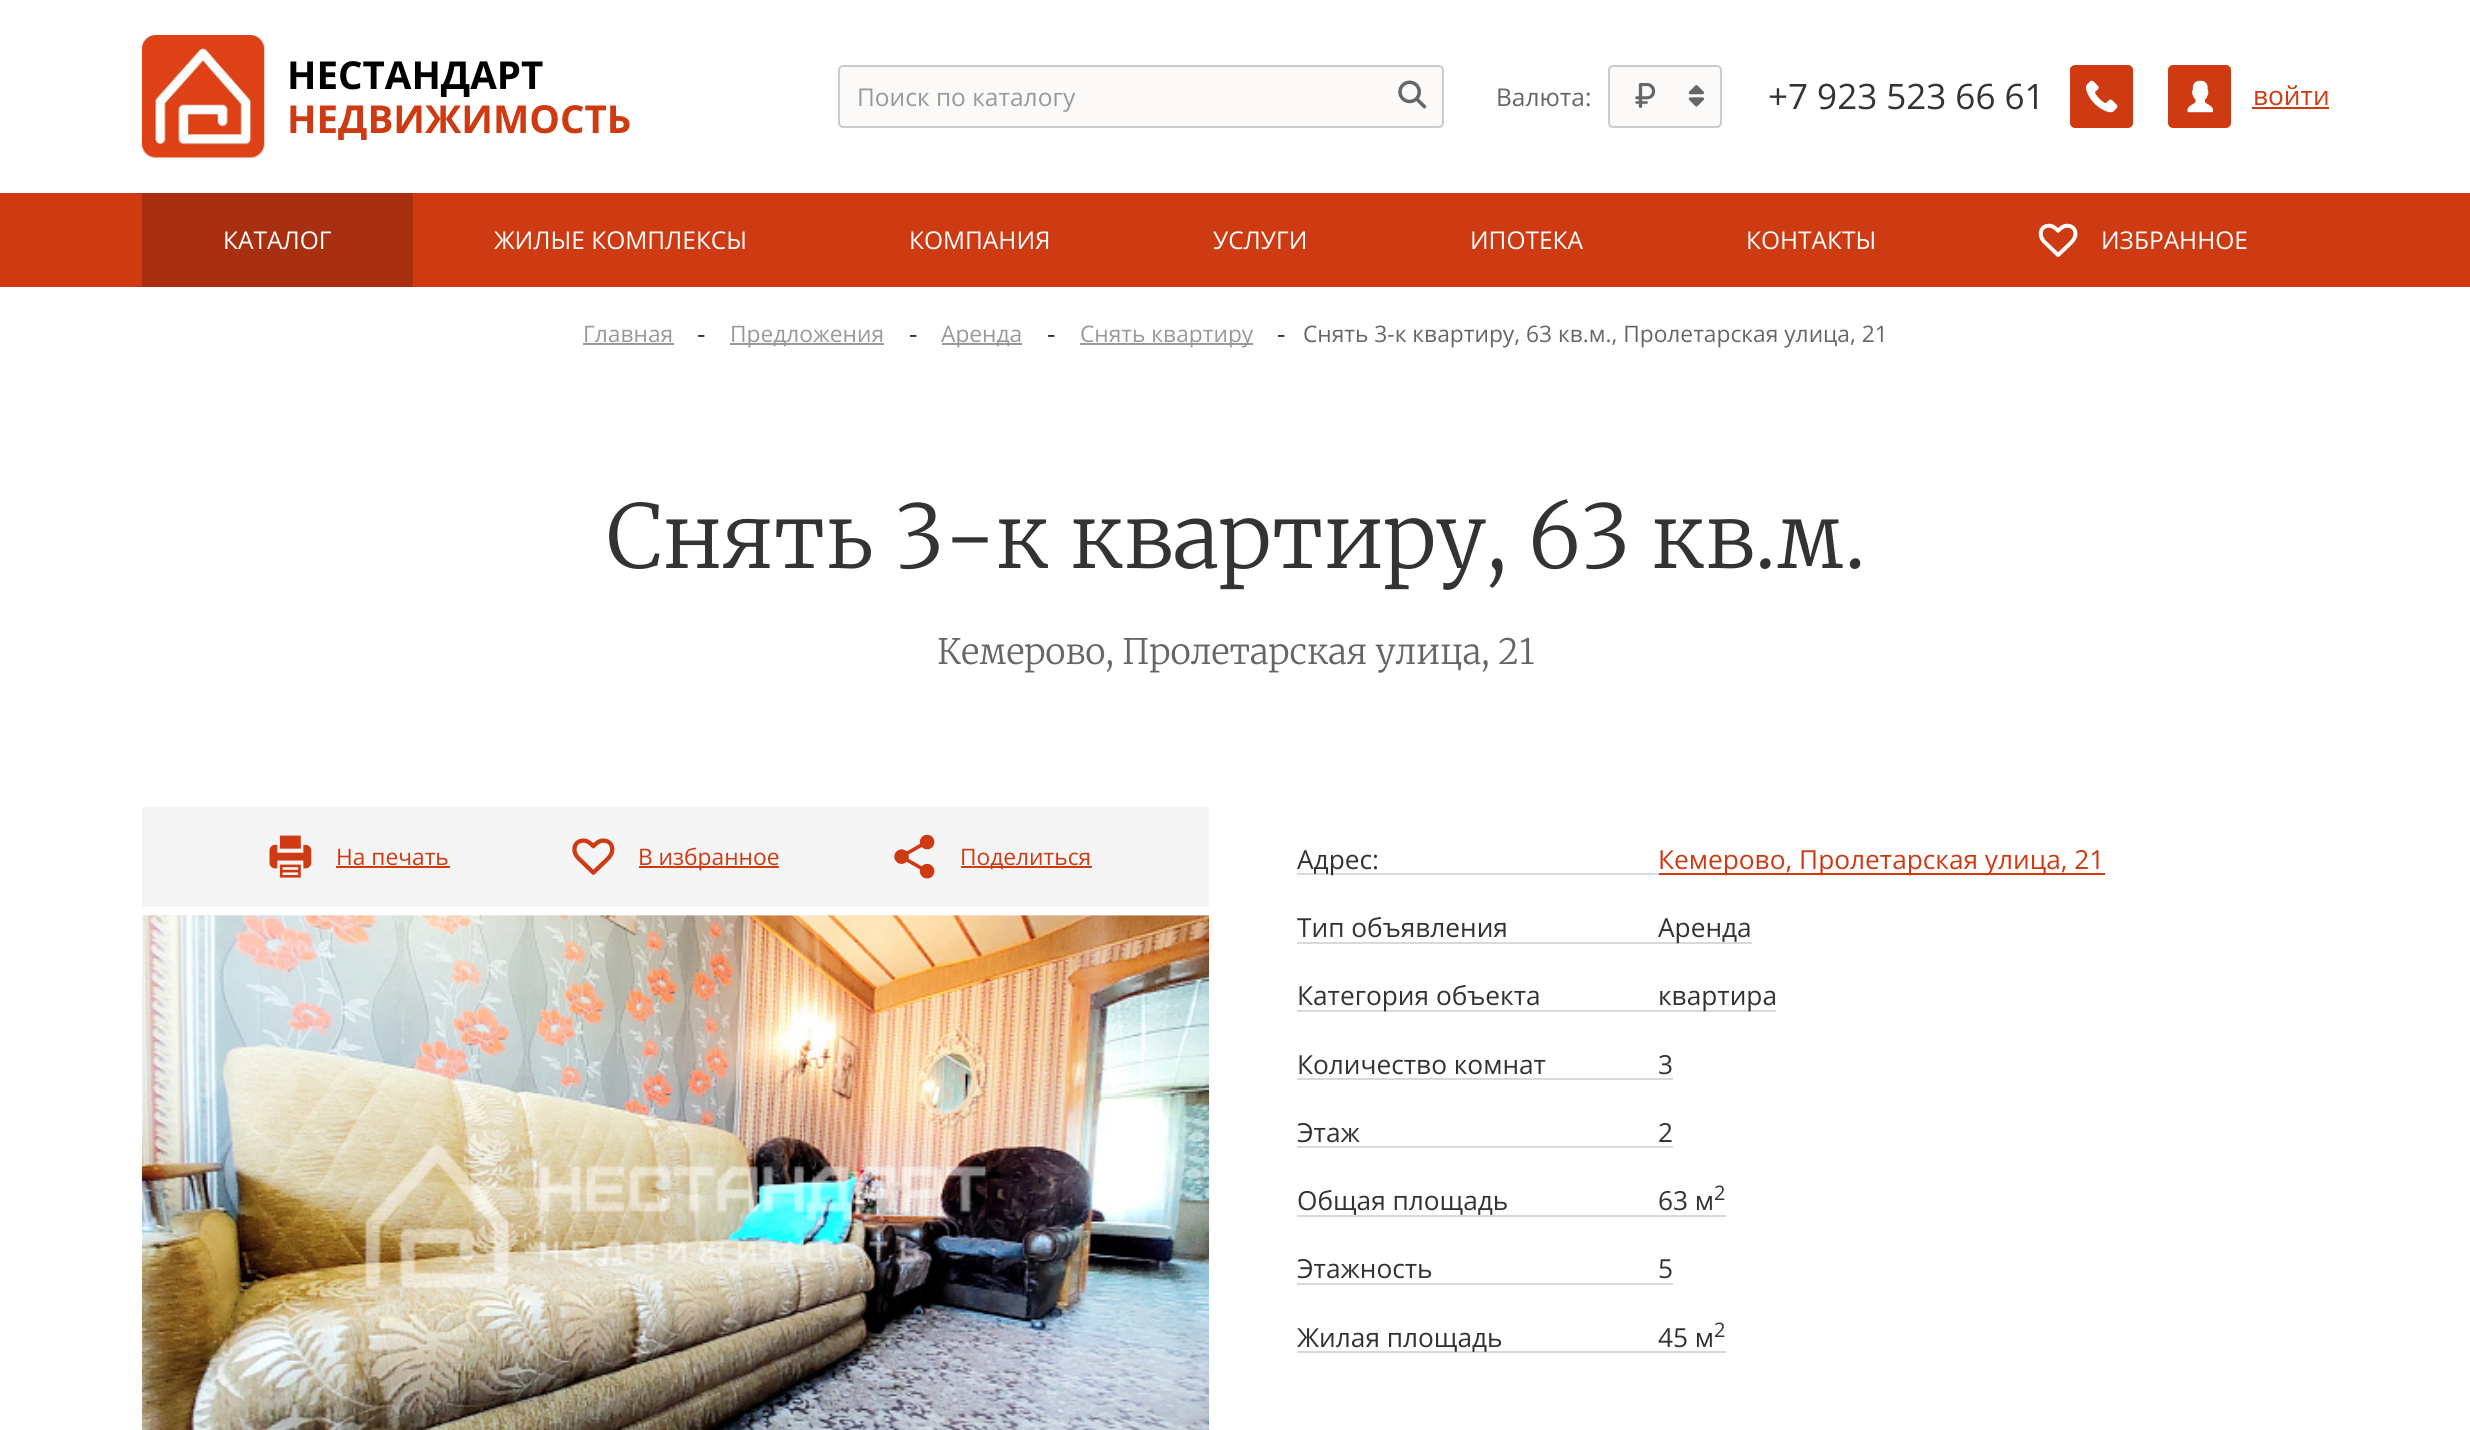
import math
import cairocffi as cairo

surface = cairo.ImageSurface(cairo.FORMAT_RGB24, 2470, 1430)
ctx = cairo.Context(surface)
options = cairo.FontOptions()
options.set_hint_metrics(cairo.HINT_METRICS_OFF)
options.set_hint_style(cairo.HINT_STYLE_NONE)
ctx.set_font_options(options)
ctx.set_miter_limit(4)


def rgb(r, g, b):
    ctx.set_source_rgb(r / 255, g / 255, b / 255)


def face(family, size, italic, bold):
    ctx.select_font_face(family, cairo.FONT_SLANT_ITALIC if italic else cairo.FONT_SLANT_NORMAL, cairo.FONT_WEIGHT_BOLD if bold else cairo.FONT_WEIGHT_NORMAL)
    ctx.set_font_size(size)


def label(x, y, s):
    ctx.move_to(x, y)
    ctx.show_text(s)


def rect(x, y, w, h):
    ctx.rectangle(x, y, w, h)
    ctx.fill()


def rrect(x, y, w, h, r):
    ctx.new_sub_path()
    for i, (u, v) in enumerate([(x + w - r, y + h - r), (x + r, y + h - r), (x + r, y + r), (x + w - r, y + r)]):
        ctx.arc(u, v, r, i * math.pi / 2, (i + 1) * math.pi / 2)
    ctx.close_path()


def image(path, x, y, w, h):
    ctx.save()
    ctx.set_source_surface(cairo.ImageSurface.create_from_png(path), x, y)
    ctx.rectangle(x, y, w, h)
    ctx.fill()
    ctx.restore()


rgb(255, 255, 255)
ctx.paint()
image('image0.png', 141, 35, 124, 123)
face('Open Sans', 38.5, 0, 1)
rgb(0, 0, 0)
label(287, 89, 'НЕСТАНДАРТ')
ctx.save()
ctx.rectangle(264, 53, 368, 87)
ctx.clip()
rgb(206, 58, 18)
label(287, 133, 'НЕДВИЖИМОСТЬ')
ctx.restore()
rgb(251, 250, 248)
rrect(839, 66, 604, 61, 4)
ctx.fill_preserve()
rgb(204, 204, 204)
ctx.stroke()
face('Open Sans', 24.5, 0, 0)
rgb(153, 153, 153)
label(857, 106, 'Поиск по каталогу')
image('image1.png', 1398, 80, 29, 29)
rgb(102, 102, 102)
label(1496, 106, 'Валюта:')
rgb(251, 250, 248)
rrect(1609, 66, 112, 61, 4)
ctx.fill_preserve()
rgb(204, 204, 204)
ctx.stroke()
face('Comfortaa', 32, 0, 1)
rgb(102, 102, 102)
label(1635, 108, '₽')
image('image2.png', 1688, 85, 16, 22)
face('Open Sans', 35, 0, 0)
rgb(51, 51, 51)
label(1768, 109, '+7 923 523 66 61')
rgb(206, 58, 18)
rrect(2070, 65, 63, 63, 5)
ctx.fill()
image('image3.png', 2086, 80, 32, 33)
rrect(2168, 65, 63, 63, 5)
ctx.fill()
image('image4.png', 2187, 80, 26, 33)
face('Open Sans', 26.25, 0, 0)
label(2253, 105, 'войти')
rect(2252, 107, 77, 2)
rect(0, 193, 2470, 94)
rgb(168, 47, 15)
rect(142, 193, 271, 94)
face('Open Sans', 24.5, 0, 0)
rgb(255, 255, 255)
label(223, 249, 'КАТАЛОГ')
label(494, 249, 'ЖИЛЫЕ КОМПЛЕКСЫ')
label(909, 249, 'КОМПАНИЯ')
label(1213, 249, 'УСЛУГИ')
label(1470, 249, 'ИПОТЕКА')
label(1746, 249, 'КОНТАКТЫ')
image('image5.png', 2038, 223, 40, 34)
label(2101, 249, 'ИЗБРАННОЕ')
face('Open Sans', 22.75, 0, 0)
rgb(153, 153, 153)
label(583, 342, 'Главная')
rect(583, 343, 91, 2)
face('Open Sans', 26.25, 0, 0)
rgb(51, 51, 51)
label(697, 343, '-')
rgb(153, 153, 153)
rect(730, 343, 154, 2)
face('Open Sans', 22.75, 0, 0)
label(730, 342, 'Предложения')
face('Open Sans', 26.25, 0, 0)
rgb(51, 51, 51)
label(909, 343, '-')
rgb(153, 153, 153)
rect(942, 343, 80, 2)
face('Open Sans', 22.75, 0, 0)
label(941, 342, 'Аренда')
face('Open Sans', 26.25, 0, 0)
rgb(51, 51, 51)
label(1047, 343, '-')
rgb(153, 153, 153)
rect(1080, 343, 173, 2)
face('Open Sans', 22.75, 0, 0)
label(1080, 342, 'Снять квартиру')
face('Open Sans', 26.25, 0, 0)
rgb(51, 51, 51)
label(1277, 343, '-')
face('Open Sans', 22.75, 0, 0)
rgb(102, 102, 102)
label(1303, 342, 'Снять 3-к квартиру, 63 кв.м., Пролетарская улица, 21')
face('Merriweather Light', 87.5, 0, 0)
rgb(51, 51, 51)
label(606, 568, 'Снять 3-к квартиру, 63 кв.м.')
face('Merriweather Light', 35, 0, 0)
rgb(102, 102, 102)
label(937, 664, 'Кемерово, Пролетарская улица, 21')
rgb(245, 245, 245)
rect(142, 807, 1067, 100)
image('image6.png', 269, 835, 43, 43)
face('Open Sans', 22.75, 0, 0)
rgb(206, 58, 18)
label(336, 865, 'На печать')
rect(336, 866, 114, 2)
image('image7.png', 572, 838, 43, 37)
rect(639, 866, 140, 2)
label(638, 865, 'В избранное')
image('image8.png', 894, 835, 41, 44)
rect(961, 866, 131, 2)
label(960, 865, 'Поделиться')
rgb(243, 241, 236)
rect(142, 915, 1067, 1)
image('image9.png', 141, 915, 1069, 515)
rgb(217, 217, 217)
rect(1297, 873, 362, 2)
face('Open Sans', 26.25, 0, 0)
rgb(51, 51, 51)
label(1297, 869, 'Адрес:')
rgb(206, 58, 18)
rect(1659, 873, 446, 2)
label(1658, 869, 'Кемерово, Пролетарская улица, 21')
rgb(217, 217, 217)
rect(1297, 942, 455, 2)
rgb(51, 51, 51)
label(1297, 937, 'Тип объявления')
label(1658, 937, 'Аренда')
rgb(217, 217, 217)
rect(1297, 1010, 479, 2)
rgb(51, 51, 51)
label(1297, 1005, 'Категория объекта')
label(1658, 1005, 'квартира')
rgb(217, 217, 217)
rect(1297, 1078, 376, 2)
rgb(51, 51, 51)
label(1297, 1074, 'Количество комнат')
label(1658, 1074, '3')
rgb(217, 217, 217)
rect(1297, 1146, 376, 2)
rgb(51, 51, 51)
label(1297, 1142, 'Этаж')
label(1658, 1142, '2')
rgb(217, 217, 217)
rect(1297, 1215, 429, 2)
rgb(51, 51, 51)
label(1297, 1210, 'Общая площадь')
label(1658, 1210, '63 м')
face('Open Sans', 20, 0, 0)
label(1714, 1200, '2')
rgb(217, 217, 217)
rect(1297, 1283, 376, 2)
face('Open Sans', 26.25, 0, 0)
rgb(51, 51, 51)
label(1297, 1278, 'Этажность')
label(1658, 1278, '5')
rgb(217, 217, 217)
rect(1297, 1351, 429, 2)
rgb(51, 51, 51)
label(1297, 1347, 'Жилая площадь')
label(1658, 1347, '45 м')
face('Open Sans', 20, 0, 0)
label(1714, 1337, '2')
surface.write_to_png('render.png')
